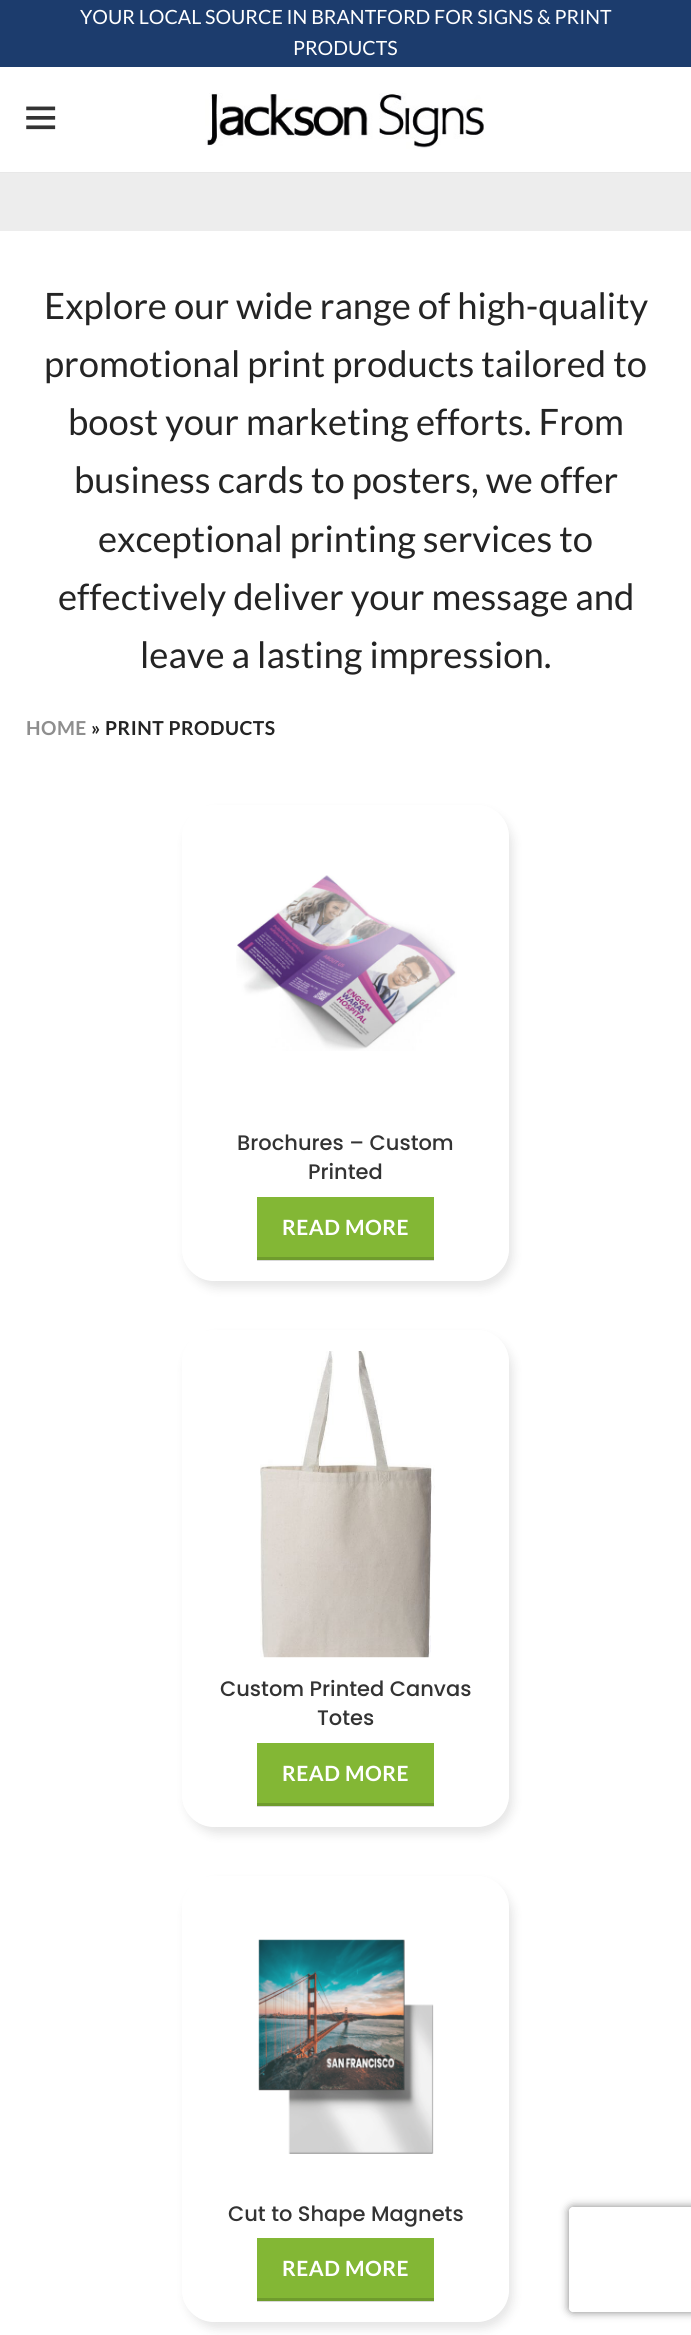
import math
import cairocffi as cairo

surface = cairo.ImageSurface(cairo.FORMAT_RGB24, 691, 2335)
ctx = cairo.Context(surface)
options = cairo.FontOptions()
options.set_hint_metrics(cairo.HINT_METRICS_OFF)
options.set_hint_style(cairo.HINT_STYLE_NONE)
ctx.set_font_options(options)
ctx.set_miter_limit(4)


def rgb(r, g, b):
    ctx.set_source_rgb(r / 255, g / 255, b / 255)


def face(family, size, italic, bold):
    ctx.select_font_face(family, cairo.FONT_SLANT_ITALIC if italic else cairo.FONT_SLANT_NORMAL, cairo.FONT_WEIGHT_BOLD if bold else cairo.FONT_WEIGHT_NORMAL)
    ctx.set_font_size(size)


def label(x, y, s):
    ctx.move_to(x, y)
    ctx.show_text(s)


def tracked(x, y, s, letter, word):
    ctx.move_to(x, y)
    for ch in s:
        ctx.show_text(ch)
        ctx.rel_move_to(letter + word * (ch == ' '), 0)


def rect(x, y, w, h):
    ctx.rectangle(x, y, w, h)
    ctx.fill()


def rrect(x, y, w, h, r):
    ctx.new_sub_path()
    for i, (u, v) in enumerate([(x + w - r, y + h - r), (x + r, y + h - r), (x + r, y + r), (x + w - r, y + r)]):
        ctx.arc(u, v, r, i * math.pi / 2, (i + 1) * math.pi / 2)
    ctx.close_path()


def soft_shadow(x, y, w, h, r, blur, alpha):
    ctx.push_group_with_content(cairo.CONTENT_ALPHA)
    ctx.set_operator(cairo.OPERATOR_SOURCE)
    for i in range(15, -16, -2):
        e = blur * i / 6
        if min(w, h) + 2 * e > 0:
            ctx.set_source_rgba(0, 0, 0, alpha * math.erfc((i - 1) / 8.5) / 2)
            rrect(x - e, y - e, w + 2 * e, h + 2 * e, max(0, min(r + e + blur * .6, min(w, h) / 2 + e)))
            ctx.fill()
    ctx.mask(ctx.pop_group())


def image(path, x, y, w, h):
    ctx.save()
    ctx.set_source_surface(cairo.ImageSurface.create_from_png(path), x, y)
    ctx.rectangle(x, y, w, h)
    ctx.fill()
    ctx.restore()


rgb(255, 255, 255)
ctx.paint()
rgb(217, 217, 217)
rect(257, 2301, 177, 1)
rect(257, 1806, 177, 1)
rect(257, 1260, 177, 1)
rgb(28, 60, 109)
rect(0, 0, 691, 67)
face('Lato', 19.6, 0, 0)
rgb(255, 255, 255)
label(80, 24, 'YOUR LOCAL SOURCE IN BRANTFORD FOR SIGNS & PRINT')
label(293, 55, 'PRODUCTS')
rgb(232, 232, 232)
rect(0, 172, 691, 1)
image('image0.png', 26, 106, 30, 24)
image('image1.png', 205, 93, 279, 56)
rgb(237, 237, 237)
rect(0, 173, 691, 58)
face('Lato', 36.4, 0, 0)
rgb(36, 36, 36)
label(44, 319, 'Explore our wide range of high-quality')
label(44, 377, 'promotional print products tailored to')
label(68, 435, 'boost your marketing efforts. From')
label(74, 493, 'business cards to posters, we offer')
label(98, 552, 'exceptional printing services to')
label(58, 610, 'effectively deliver your message and')
label(140, 668, 'leave a lasting impression.')
face('Lato', 19.25, 0, 1)
rgb(142, 142, 142)
tracked(26, 735, 'HOME', 0.5, 0)
rgb(36, 36, 36)
tracked(91, 735, '» PRINT PRODUCTS', 0.5, 0)
ctx.save()
ctx.set_fill_rule(cairo.FILL_RULE_EVEN_ODD)
ctx.new_path()
ctx.move_to(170, 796)
ctx.line_to(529, 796)
ctx.line_to(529, 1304)
ctx.line_to(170, 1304)
ctx.close_path()
ctx.move_to(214, 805)
ctx.line_to(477, 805)
ctx.curve_to(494.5, 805, 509, 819.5, 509, 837)
ctx.line_to(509, 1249)
ctx.curve_to(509, 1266.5, 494.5, 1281, 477, 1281)
ctx.line_to(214, 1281)
ctx.curve_to(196.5, 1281, 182, 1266.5, 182, 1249)
ctx.line_to(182, 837)
ctx.curve_to(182, 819.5, 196.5, 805, 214, 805)
ctx.close_path()
ctx.clip()
rgb(0, 0, 0)
soft_shadow(186, 812, 327, 476, 32, 5, 0.1)
ctx.restore()
image('image2.png', 236, 875, 221, 176)
face('Poppins Medium', 21, 0, 0)
rgb(51, 51, 51)
label(237, 1150, 'Brochures – Custom')
label(308, 1179, 'Printed')
rgb(131, 183, 53)
rect(257, 1197, 177, 60)
rgb(111, 156, 45)
rect(257, 1257, 177, 3)
face('Lato', 21, 0, 1)
rgb(255, 255, 255)
tracked(282, 1235, 'READ MORE', 0.5, 0)
ctx.save()
ctx.set_fill_rule(cairo.FILL_RULE_EVEN_ODD)
ctx.new_path()
ctx.move_to(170, 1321)
ctx.line_to(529, 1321)
ctx.line_to(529, 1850)
ctx.line_to(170, 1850)
ctx.close_path()
ctx.move_to(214, 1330)
ctx.line_to(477, 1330)
ctx.curve_to(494.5, 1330, 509, 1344.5, 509, 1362)
ctx.line_to(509, 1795)
ctx.curve_to(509, 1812.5, 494.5, 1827, 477, 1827)
ctx.line_to(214, 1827)
ctx.curve_to(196.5, 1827, 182, 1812.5, 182, 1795)
ctx.line_to(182, 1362)
ctx.curve_to(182, 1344.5, 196.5, 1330, 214, 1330)
ctx.close_path()
ctx.clip()
rgb(0, 0, 0)
soft_shadow(186, 1337, 327, 497, 32, 5, 0.1)
ctx.restore()
image('image3.png', 260, 1351, 175, 307)
face('Poppins Medium', 21, 0, 0)
rgb(51, 51, 51)
label(220, 1696, 'Custom Printed Canvas')
label(317, 1725, 'Totes')
rgb(131, 183, 53)
rect(257, 1743, 177, 60)
rgb(111, 156, 45)
rect(257, 1803, 177, 3)
face('Lato', 21, 0, 1)
rgb(255, 255, 255)
tracked(282, 1781, 'READ MORE', 0.5, 0)
ctx.save()
ctx.set_fill_rule(cairo.FILL_RULE_EVEN_ODD)
ctx.new_path()
ctx.move_to(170, 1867)
ctx.line_to(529, 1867)
ctx.line_to(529, 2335)
ctx.line_to(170, 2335)
ctx.close_path()
ctx.move_to(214, 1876)
ctx.line_to(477, 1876)
ctx.curve_to(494.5, 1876, 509, 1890.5, 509, 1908)
ctx.line_to(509, 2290)
ctx.curve_to(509, 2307.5, 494.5, 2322, 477, 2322)
ctx.line_to(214, 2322)
ctx.curve_to(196.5, 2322, 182, 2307.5, 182, 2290)
ctx.line_to(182, 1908)
ctx.curve_to(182, 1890.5, 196.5, 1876, 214, 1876)
ctx.close_path()
ctx.clip()
rgb(0, 0, 0)
soft_shadow(186, 1883, 327, 446, 32, 5, 0.1)
ctx.restore()
image('image4.png', 258, 1939, 176, 215)
face('Poppins Medium', 21, 0, 0)
rgb(51, 51, 51)
label(228, 2221, 'Cut to Shape Magnets')
rgb(131, 183, 53)
rect(257, 2238, 177, 60)
rgb(111, 156, 45)
rect(257, 2298, 177, 3)
face('Lato', 21, 0, 1)
rgb(255, 255, 255)
tracked(282, 2276, 'READ MORE', 0.5, 0)
ctx.save()
ctx.set_fill_rule(cairo.FILL_RULE_EVEN_ODD)
ctx.new_path()
ctx.move_to(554, 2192)
ctx.line_to(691, 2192)
ctx.line_to(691, 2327)
ctx.line_to(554, 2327)
ctx.close_path()
ctx.move_to(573, 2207)
ctx.line_to(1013, 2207)
ctx.curve_to(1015, 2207, 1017, 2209, 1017, 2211)
ctx.line_to(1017, 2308)
ctx.curve_to(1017, 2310, 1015, 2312, 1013, 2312)
ctx.line_to(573, 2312)
ctx.curve_to(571, 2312, 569, 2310, 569, 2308)
ctx.line_to(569, 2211)
ctx.curve_to(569, 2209, 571, 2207, 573, 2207)
ctx.close_path()
ctx.clip()
rgb(128, 128, 128)
soft_shadow(569, 2207, 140, 105, 4, 4.5, 1)
ctx.restore()
surface.write_to_png('render.png')
